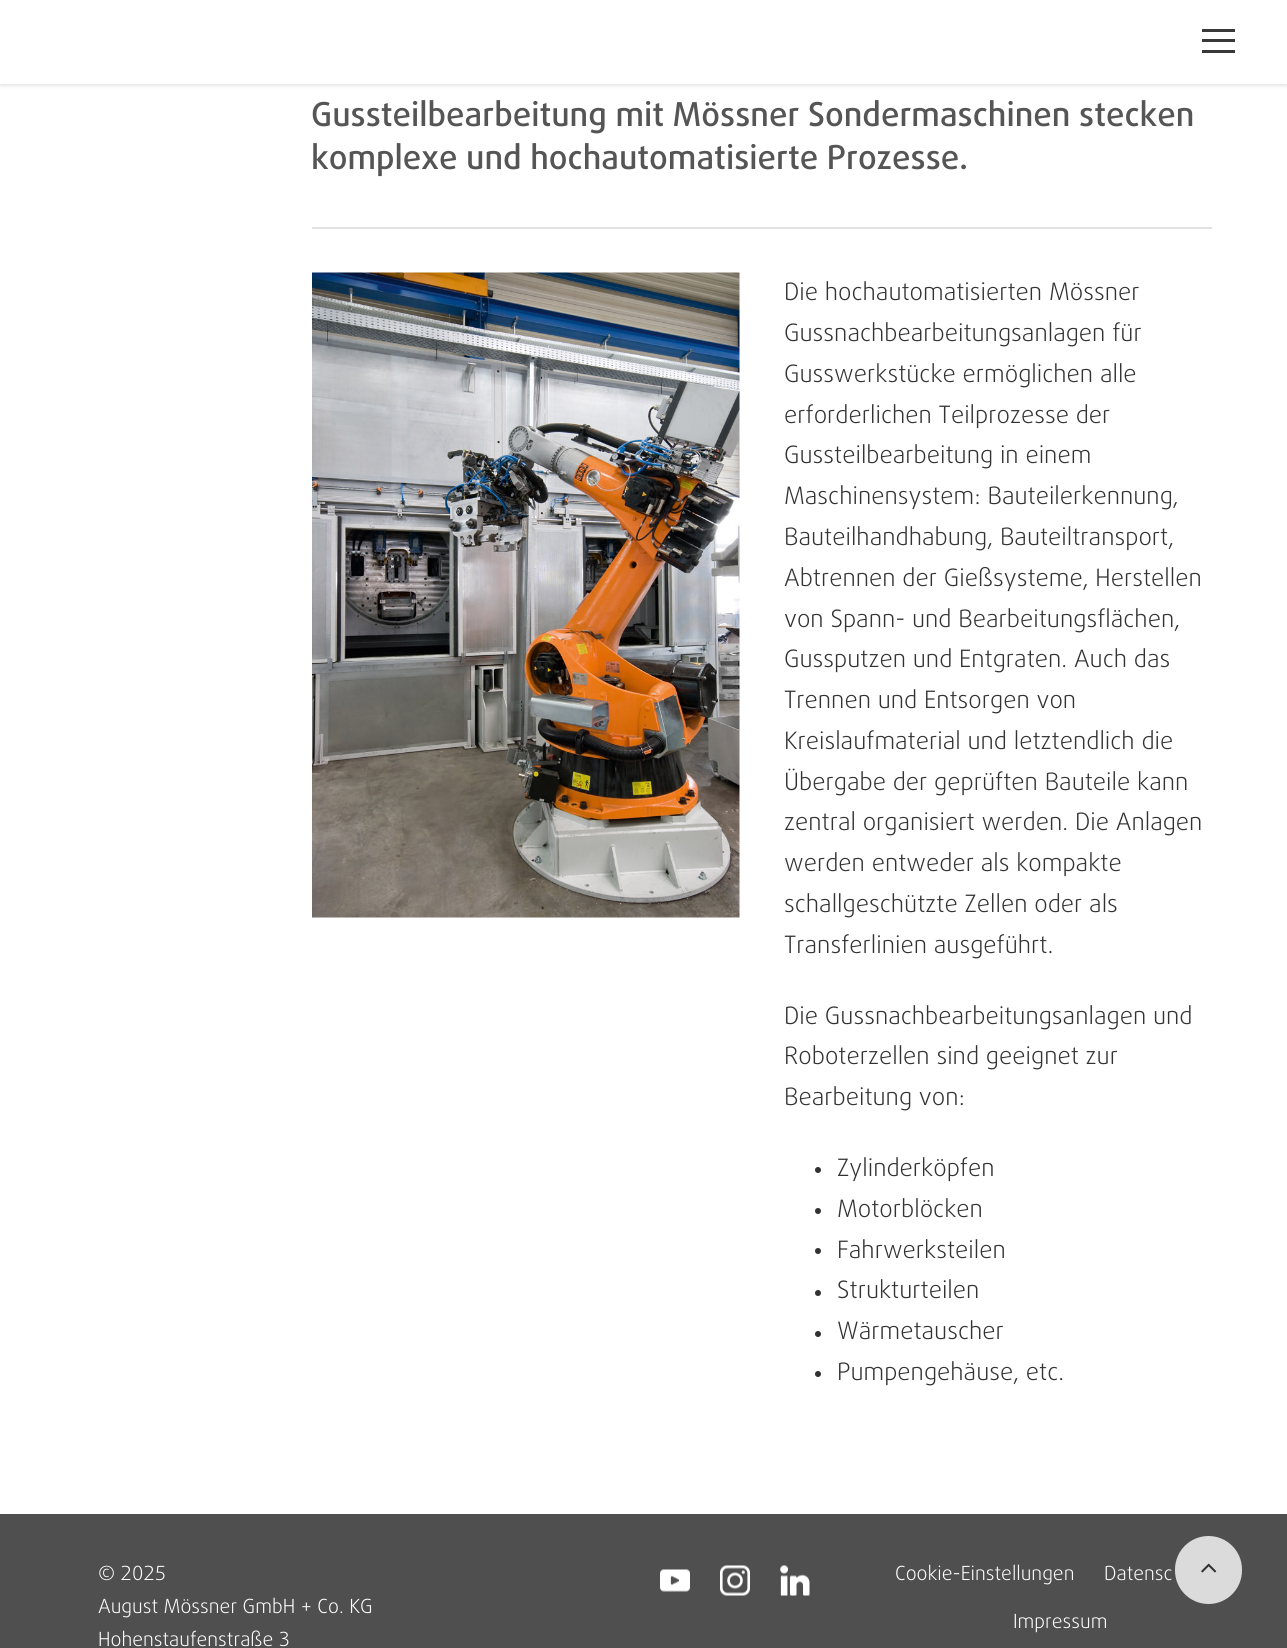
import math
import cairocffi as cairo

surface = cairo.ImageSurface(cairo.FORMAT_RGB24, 1287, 1648)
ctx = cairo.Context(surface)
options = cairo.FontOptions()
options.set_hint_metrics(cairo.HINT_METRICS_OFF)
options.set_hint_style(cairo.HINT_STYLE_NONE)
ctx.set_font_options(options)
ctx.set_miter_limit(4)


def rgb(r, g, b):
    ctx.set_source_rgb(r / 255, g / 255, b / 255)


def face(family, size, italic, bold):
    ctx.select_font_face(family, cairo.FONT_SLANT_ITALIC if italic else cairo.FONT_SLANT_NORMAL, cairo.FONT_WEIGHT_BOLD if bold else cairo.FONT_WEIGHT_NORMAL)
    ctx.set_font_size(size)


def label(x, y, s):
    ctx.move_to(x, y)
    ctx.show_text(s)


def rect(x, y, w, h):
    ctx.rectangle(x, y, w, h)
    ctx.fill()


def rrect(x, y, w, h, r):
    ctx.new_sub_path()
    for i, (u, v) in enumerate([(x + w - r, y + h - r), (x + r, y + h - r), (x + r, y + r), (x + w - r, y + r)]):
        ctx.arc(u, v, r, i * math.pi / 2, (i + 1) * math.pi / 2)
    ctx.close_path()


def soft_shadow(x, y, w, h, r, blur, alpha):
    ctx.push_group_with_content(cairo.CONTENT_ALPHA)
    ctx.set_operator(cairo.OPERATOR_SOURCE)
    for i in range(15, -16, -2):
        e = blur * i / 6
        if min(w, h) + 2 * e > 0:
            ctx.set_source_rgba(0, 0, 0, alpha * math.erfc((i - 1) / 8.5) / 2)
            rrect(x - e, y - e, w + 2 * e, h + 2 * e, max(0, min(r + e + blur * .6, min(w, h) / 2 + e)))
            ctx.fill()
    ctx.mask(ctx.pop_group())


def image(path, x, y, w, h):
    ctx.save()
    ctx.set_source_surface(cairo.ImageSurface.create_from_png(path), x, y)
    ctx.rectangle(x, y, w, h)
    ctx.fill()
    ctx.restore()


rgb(255, 255, 255)
ctx.paint()
rgb(0, 0, 0)
soft_shadow(0, 2, 1287, 84, 0, 1.5, 0.1)
rgb(255, 255, 255)
rect(0, 0, 1287, 84)
rgb(56, 56, 56)
rect(1202, 29, 33, 3)
rect(1202, 39, 33, 3)
rect(1202, 50, 33, 3)
face('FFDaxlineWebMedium', 33, 0, 0)
rgb(85, 85, 85)
label(311, 126, 'Gussteilbearbeitung mit Mössner Sondermaschinen stecken')
label(311, 169, 'komplexe und hochautomatisierte Prozesse.')
rgb(226, 226, 226)
rect(312, 227, 900, 2)
image('image0.png', 312, 272, 428, 646)
face('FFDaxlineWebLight', 24, 0, 0)
rgb(50, 50, 50)
label(784, 300, 'Die hochautomatisierten Mössner')
label(784, 341, 'Gussnachbearbeitungsanlagen für')
label(784, 382, 'Gusswerkstücke ermöglichen alle')
label(784, 423, 'erforderlichen Teilprozesse der')
label(784, 463, 'Gussteilbearbeitung in einem')
label(784, 504, 'Maschinensystem: Bauteilerkennung,')
label(784, 545, 'Bauteilhandhabung, Bauteiltransport,')
label(784, 586, 'Abtrennen der Gießsysteme, Herstellen')
label(784, 627, 'von Spann- und Bearbeitungsflächen,')
label(784, 667, 'Gussputzen und Entgraten. Auch das')
label(784, 708, 'Trennen und Entsorgen von')
label(784, 749, 'Kreislaufmaterial und letztendlich die')
label(784, 790, 'Übergabe der geprüften Bauteile kann')
label(784, 830, 'zentral organisiert werden. Die Anlagen')
label(784, 871, 'werden entweder als kompakte')
label(784, 912, 'schallgeschützte Zellen oder als')
label(784, 953, 'Transferlinien ausgeführt.')
label(784, 1024, 'Die Gussnachbearbeitungsanlagen und')
label(784, 1064, 'Roboterzellen sind geeignet zur')
label(784, 1105, 'Bearbeitung von:')
ctx.new_path()
ctx.arc(818, 1170, 3, 0, 2 * math.pi)
ctx.fill()
label(837, 1176, 'Zylinderköpfen')
ctx.new_path()
ctx.arc(818, 1211, 3, 0, 2 * math.pi)
ctx.fill()
label(837, 1217, 'Motorblöcken')
ctx.new_path()
ctx.arc(818, 1251, 3, 0, 2 * math.pi)
ctx.fill()
label(837, 1258, 'Fahrwerksteilen')
ctx.new_path()
ctx.arc(818, 1293, 3, 0, 2 * math.pi)
ctx.fill()
label(837, 1298, 'Strukturteilen')
ctx.new_path()
ctx.arc(818, 1334, 3, 0, 2 * math.pi)
ctx.fill()
label(837, 1339, 'Wärmetauscher')
ctx.new_path()
ctx.arc(818, 1374, 3, 0, 2 * math.pi)
ctx.fill()
label(837, 1380, 'Pumpengehäuse, etc.')
rgb(79, 79, 79)
rect(0, 1514, 1287, 134)
face('FFDaxlineWebLight', 19.5, 0, 0)
rgb(255, 255, 255)
label(98, 1580, '© 2025')
label(98, 1613, 'August Mössner GmbH + Co. KG')
label(98, 1646, 'Hohenstaufenstraße 3')
image('image1.png', 660, 1569, 30, 23)
image('image2.png', 720, 1565, 30, 31)
image('image3.png', 780, 1565, 30, 31)
label(895, 1580, 'Cookie-Einstellungen')
label(1104, 1580, 'Datensc')
label(1013, 1628, 'Impressum')
rgb(219, 219, 219)
rrect(1175, 1536, 67, 68, 33.5)
ctx.fill()
image('image4.png', 1201, 1563, 16, 10)
surface.write_to_png('render.png')
